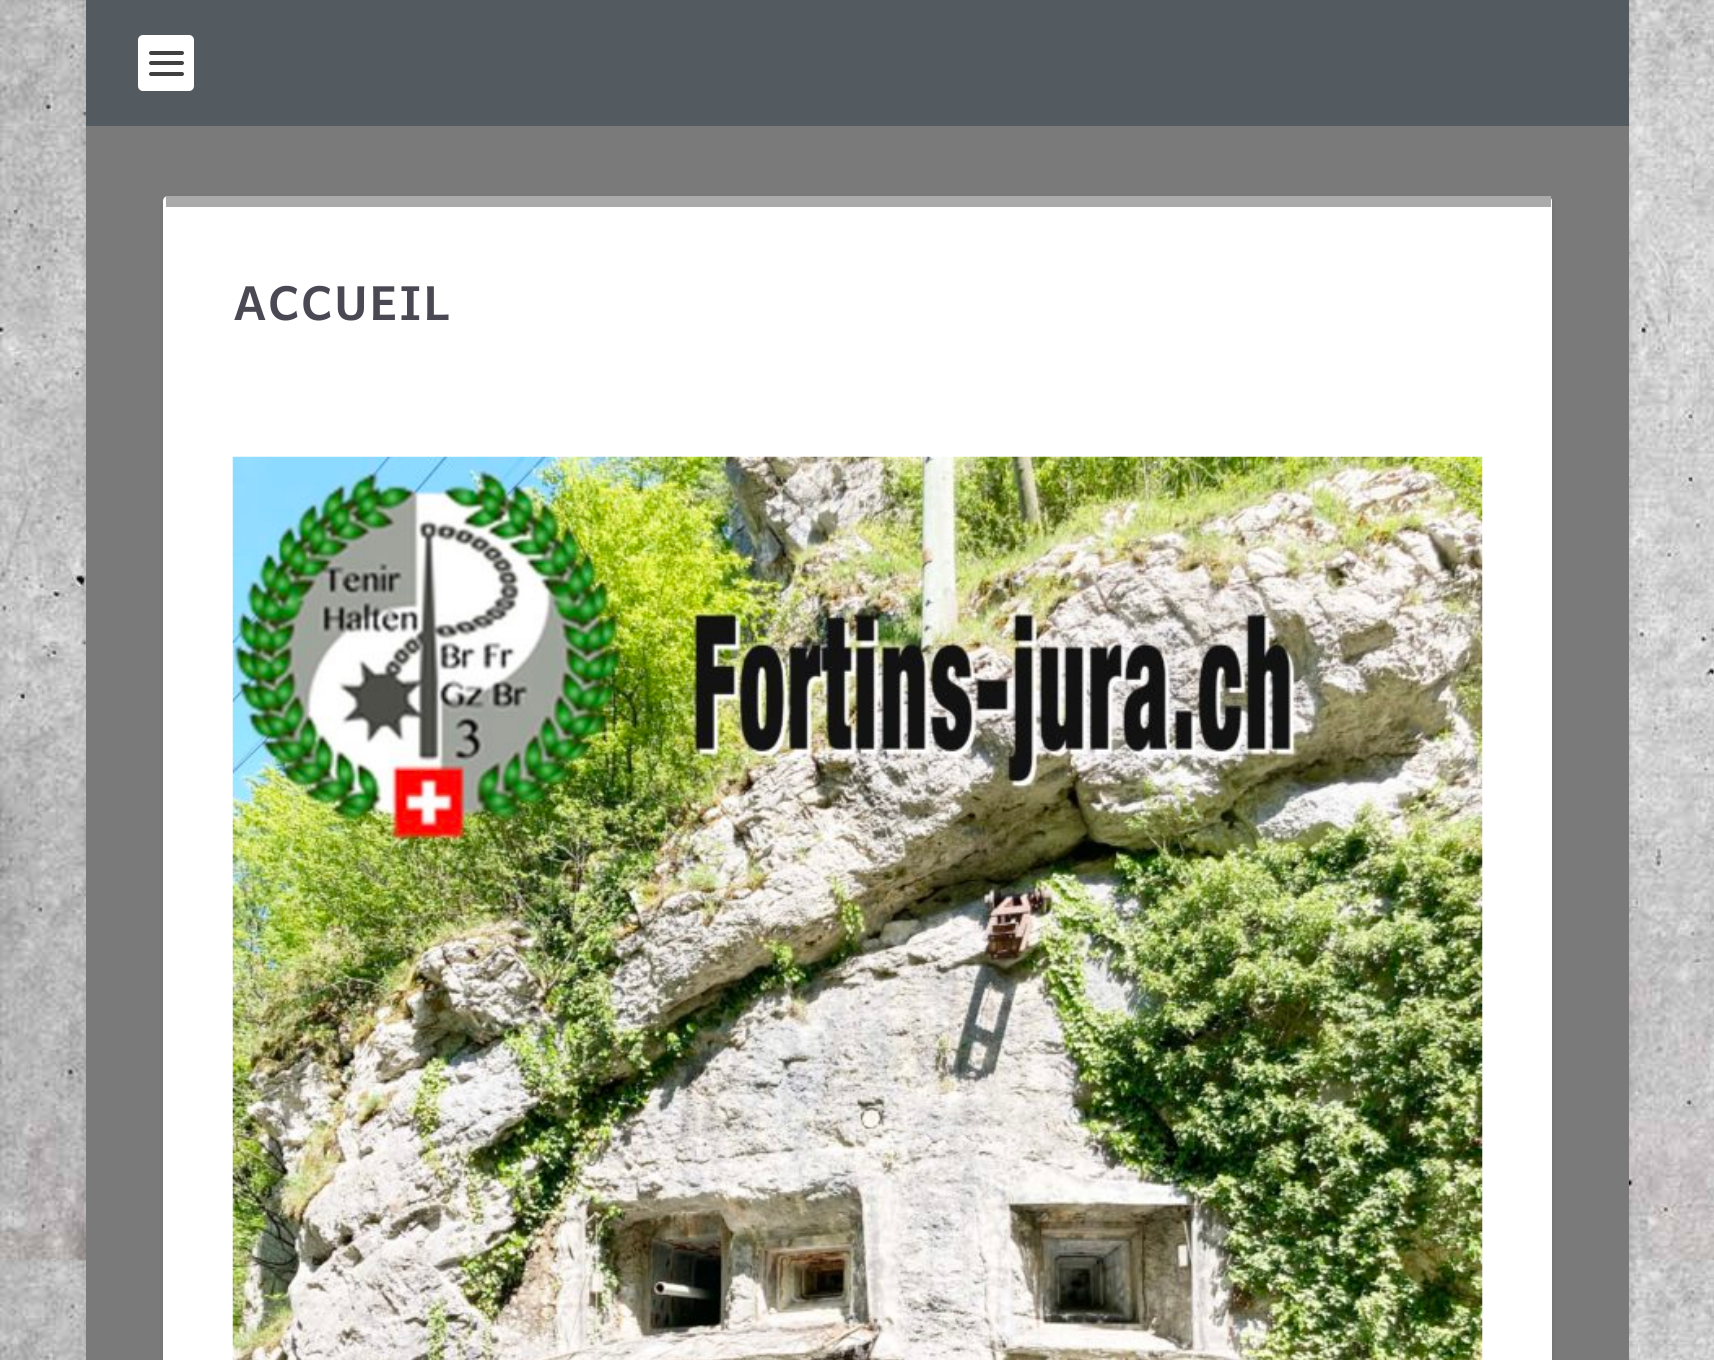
import math
import cairocffi as cairo

surface = cairo.ImageSurface(cairo.FORMAT_RGB24, 1714, 1360)
ctx = cairo.Context(surface)
options = cairo.FontOptions()
options.set_hint_metrics(cairo.HINT_METRICS_OFF)
options.set_hint_style(cairo.HINT_STYLE_NONE)
ctx.set_font_options(options)
ctx.set_miter_limit(4)


def rgb(r, g, b):
    ctx.set_source_rgb(r / 255, g / 255, b / 255)


def face(family, size, italic, bold):
    ctx.select_font_face(family, cairo.FONT_SLANT_ITALIC if italic else cairo.FONT_SLANT_NORMAL, cairo.FONT_WEIGHT_BOLD if bold else cairo.FONT_WEIGHT_NORMAL)
    ctx.set_font_size(size)


def tracked(x, y, s, letter, word):
    ctx.move_to(x, y)
    for ch in s:
        ctx.show_text(ch)
        ctx.rel_move_to(letter + word * (ch == ' '), 0)


def rect(x, y, w, h):
    ctx.rectangle(x, y, w, h)
    ctx.fill()


def rrect(x, y, w, h, r):
    ctx.new_sub_path()
    for i, (u, v) in enumerate([(x + w - r, y + h - r), (x + r, y + h - r), (x + r, y + r), (x + w - r, y + r)]):
        ctx.arc(u, v, r, i * math.pi / 2, (i + 1) * math.pi / 2)
    ctx.close_path()


def soft_shadow(x, y, w, h, r, blur, alpha):
    ctx.push_group_with_content(cairo.CONTENT_ALPHA)
    ctx.set_operator(cairo.OPERATOR_SOURCE)
    for i in range(15, -16, -2):
        e = blur * i / 6
        if min(w, h) + 2 * e > 0:
            ctx.set_source_rgba(0, 0, 0, alpha * math.erfc((i - 1) / 8.5) / 2)
            rrect(x - e, y - e, w + 2 * e, h + 2 * e, max(0, min(r + e + blur * .6, min(w, h) / 2 + e)))
            ctx.fill()
    ctx.mask(ctx.pop_group())


def image(path, x, y, w, h):
    ctx.save()
    ctx.set_source_surface(cairo.ImageSurface.create_from_png(path), x, y)
    ctx.rectangle(x, y, w, h)
    ctx.fill()
    ctx.restore()


rgb(255, 255, 255)
ctx.paint()
image('image0.png', 0, 0, 1714, 1360)
rgb(0, 0, 0)
soft_shadow(86, 2, 1543, 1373, 0, 5, 0.1)
rgb(122, 122, 122)
rect(86, 126, 1543, 1234)
rgb(83, 90, 96)
rect(86, 0, 1543, 126)
rgb(255, 255, 255)
rrect(138, 35, 56, 56, 5)
ctx.fill()
rgb(64, 64, 64)
rrect(149, 51, 35, 4, 2)
ctx.fill()
rrect(149, 61, 35, 4, 2)
ctx.fill()
rrect(149, 72, 35, 4, 2)
ctx.fill()
rgb(0, 0, 0)
soft_shadow(163, 198, 1389, 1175, 5, 2.5, 0.1)
rgb(255, 255, 255)
rrect(163, 196, 1389, 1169, 5)
ctx.fill()
rgb(170, 170, 170)
rect(166, 196, 1385, 11)
face('Harmattan', 63, 0, 1)
rgb(73, 72, 83)
tracked(233, 320, 'ACCUEIL', 1, 0)
image('image1.png', 232, 456, 1251, 904)
surface.write_to_png('render.png')
